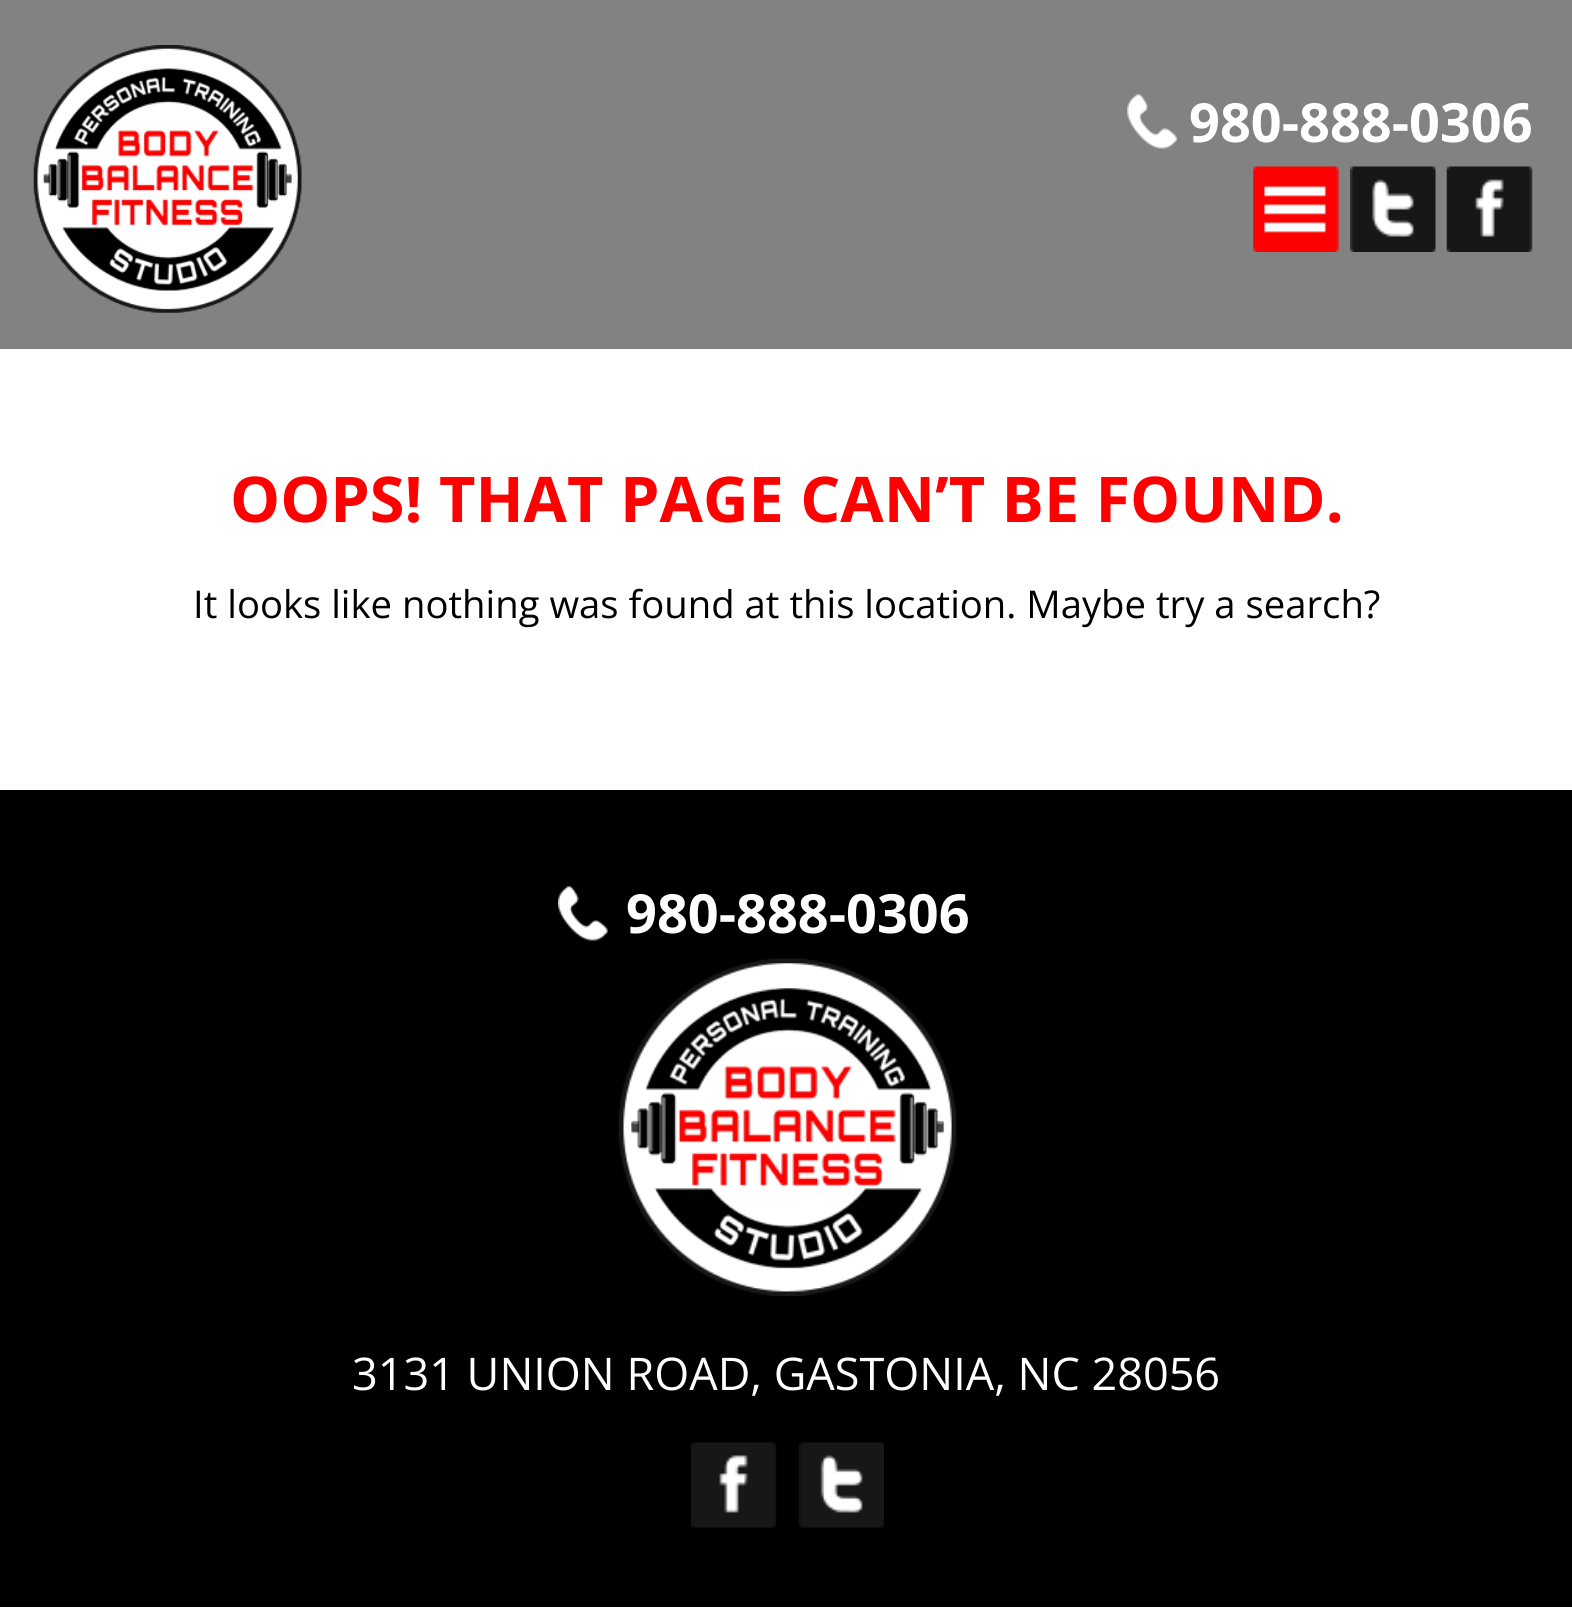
import math
import cairocffi as cairo

surface = cairo.ImageSurface(cairo.FORMAT_RGB24, 1572, 1623)
ctx = cairo.Context(surface)
options = cairo.FontOptions()
options.set_hint_metrics(cairo.HINT_METRICS_OFF)
options.set_hint_style(cairo.HINT_STYLE_NONE)
ctx.set_font_options(options)
ctx.set_miter_limit(4)


def rgb(r, g, b):
    ctx.set_source_rgb(r / 255, g / 255, b / 255)


def face(family, size, italic, bold):
    ctx.select_font_face(family, cairo.FONT_SLANT_ITALIC if italic else cairo.FONT_SLANT_NORMAL, cairo.FONT_WEIGHT_BOLD if bold else cairo.FONT_WEIGHT_NORMAL)
    ctx.set_font_size(size)


def label(x, y, s):
    ctx.move_to(x, y)
    ctx.show_text(s)


def rect(x, y, w, h):
    ctx.rectangle(x, y, w, h)
    ctx.fill()


def image(path, x, y, w, h):
    ctx.save()
    ctx.set_source_surface(cairo.ImageSurface.create_from_png(path), x, y)
    ctx.rectangle(x, y, w, h)
    ctx.fill()
    ctx.restore()


rgb(255, 255, 255)
ctx.paint()
rgb(130, 130, 130)
rect(0, 0, 1572, 349)
image('image0.png', 33, 45, 269, 268)
image('image1.png', 1127, 94, 50, 55)
face('Open Sans', 54, 0, 1)
rgb(255, 255, 255)
label(1189, 142, '980-888-0306')
image('image2.png', 1253, 166, 86, 86)
image('image3.png', 1350, 166, 86, 86)
image('image4.png', 1446, 166, 87, 86)
face('Open Sans', 63, 0, 1)
rgb(255, 0, 0)
label(230, 522, 'OOPS! THAT PAGE CAN’T BE FOUND.')
face('Open Sans', 38.25, 0, 0)
rgb(0, 0, 0)
label(193, 618, 'It looks like nothing was found at this location. Maybe try a search?')
rect(0, 790, 1572, 817)
image('image5.png', 558, 886, 50, 55)
face('Open Sans', 54, 0, 1)
rgb(255, 255, 255)
label(626, 933, '980-888-0306')
image('image6.png', 618, 958, 339, 338)
face('Open Sans', 45, 0, 0)
label(352, 1390, '3131 UNION ROAD, GASTONIA, NC 28056')
image('image7.png', 691, 1442, 86, 86)
image('image8.png', 798, 1442, 86, 86)
surface.write_to_png('render.png')
